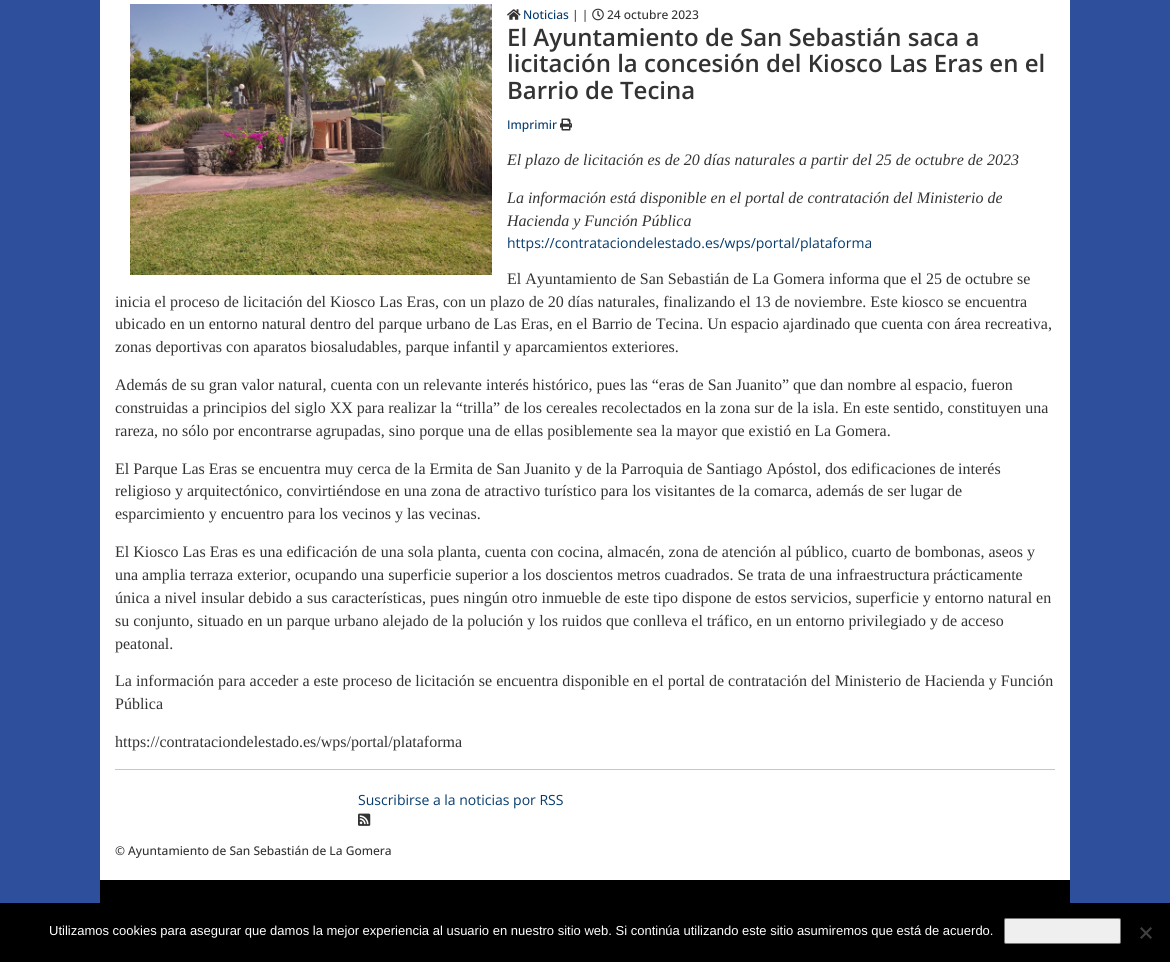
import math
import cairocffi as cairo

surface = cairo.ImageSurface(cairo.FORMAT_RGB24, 1170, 962)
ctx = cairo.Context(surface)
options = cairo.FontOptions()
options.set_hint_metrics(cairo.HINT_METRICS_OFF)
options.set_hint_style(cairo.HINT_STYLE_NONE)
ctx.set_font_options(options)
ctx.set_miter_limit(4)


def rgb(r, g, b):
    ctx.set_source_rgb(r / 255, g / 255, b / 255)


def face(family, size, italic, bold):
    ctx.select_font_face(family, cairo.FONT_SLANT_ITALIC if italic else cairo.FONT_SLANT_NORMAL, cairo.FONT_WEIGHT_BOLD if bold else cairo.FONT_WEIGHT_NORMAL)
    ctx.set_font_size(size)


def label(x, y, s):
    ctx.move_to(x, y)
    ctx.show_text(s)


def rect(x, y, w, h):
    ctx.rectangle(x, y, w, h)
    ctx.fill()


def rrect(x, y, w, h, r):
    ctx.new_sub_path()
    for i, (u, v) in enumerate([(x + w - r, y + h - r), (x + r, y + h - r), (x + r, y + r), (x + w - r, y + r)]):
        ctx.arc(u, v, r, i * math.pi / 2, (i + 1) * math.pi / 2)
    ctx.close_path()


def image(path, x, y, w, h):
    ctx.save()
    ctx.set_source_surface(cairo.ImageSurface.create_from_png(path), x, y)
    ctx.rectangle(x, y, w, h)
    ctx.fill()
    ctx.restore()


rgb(46, 80, 156)
ctx.paint()
rgb(255, 255, 255)
rect(100, 0, 970, 880)
image('image0.png', 130, 4, 362, 271)
image('image1.png', 507, 9, 14, 11)
face('Open Sans Medium', 12, 0, 0)
rgb(6, 59, 109)
label(523, 19, 'Noticias')
rgb(51, 51, 51)
label(572, 19, '| |')
image('image2.png', 592, 8, 12, 13)
label(607, 19, '24 octubre 2023')
face('Open Sans SemiBold', 24, 0, 0)
label(507, 46, 'El Ayuntamiento de San Sebastián saca a')
label(507, 72, 'licitación la concesión del Kiosco Las Eras en el')
label(507, 99, 'Barrio de Tecina')
face('Open Sans Medium', 12, 0, 0)
rgb(6, 59, 109)
label(507, 129, 'Imprimir')
image('image3.png', 560, 118, 12, 13)
face('Liberation Serif', 16, 1, 0)
rgb(51, 51, 51)
label(507, 165, 'El plazo de licitación es de 20 días naturales a partir del 25 de octubre de 2023')
label(507, 203, 'La información está disponible en el portal de contratación del Ministerio de')
label(507, 226, 'Hacienda y Función Pública')
face('Open Sans', 14, 0, 0)
rgb(6, 59, 109)
label(507, 248, 'https://contrataciondelestado.es/wps/portal/plataforma')
face('Liberation Serif', 16, 0, 0)
rgb(51, 51, 51)
label(507, 284, 'El Ayuntamiento de San Sebastián de La Gomera informa que el 25 de octubre se')
label(115, 307, 'inicia el proceso de licitación del Kiosco Las Eras, con un plazo de 20 días naturales, finalizando el 13 de noviembre. Este kiosco se encuentra')
label(115, 329, 'ubicado en un entorno natural dentro del parque urbano de Las Eras, en el Barrio de Tecina. Un espacio ajardinado que cuenta con área recreativa,')
label(115, 352, 'zonas deportivas con aparatos biosaludables, parque infantil y aparcamientos exteriores.')
label(115, 390, 'Además de su gran valor natural, cuenta con un relevante interés histórico, pues las “eras de San Juanito” que dan nombre al')
label(915, 390, 'espacio, fueron')
label(115, 413, 'construidas a principios del siglo XX para realizar la “trilla” de los cereales recolectados en la zona sur de la isla. En este sentido, constituyen una')
label(115, 436, 'rareza, no sólo por encontrarse agrupadas, sino porque una de ellas posiblemente sea la mayor que existió en La Gomera.')
label(115, 474, 'El Parque Las Eras se encuentra muy cerca de la Ermita de San Juanito y de la Parroquia de Santiago Apóstol, dos edificaciones de')
label(958, 474, 'interés')
label(115, 496, 'religioso y arquitectónico, convirtiéndose en una zona de atractivo turístico para los visitantes de la comarca, además de ser')
label(910, 496, 'lugar de')
label(115, 519, 'esparcimiento y encuentro para los vecinos y las vecinas.')
label(115, 557, 'El Kiosco Las Eras es una edificación de una sola planta, cuenta con cocina, almacén, zona de atención al público, cuarto de bombonas, aseos y')
label(115, 580, 'una amplia terraza exterior, ocupando una superficie superior a los doscientos metros cuadrados. Se trata')
label(790, 580, 'de una infraestructura')
label(933, 580, 'prácticamente')
label(115, 603, 'única a nivel insular debido a sus características, pues ningún otro inmueble de este tipo dispone de estos servicios, superficie y entorno natural en')
label(115, 626, 'su conjunto, situado en un parque urbano alejado de la polución y los ruidos que conlleva el tráfico, en un entorno privilegiado y de acceso')
label(115, 649, 'peatonal.')
label(115, 686, 'La información para acceder a este proceso de licitación se encuentra disponible en el portal de contratación del Ministerio de Hacienda y Función')
label(115, 709, 'Pública')
label(115, 747, 'https://contrataciondelestado.es/wps/portal/plataforma')
rgb(198, 198, 198)
rect(115, 769, 940, 1)
face('Open Sans', 14, 0, 0)
rgb(6, 59, 109)
label(358, 805, 'Suscribirse a la noticias por RSS')
image('image4.png', 358, 813, 13, 13)
face('Open Sans Medium', 12, 0, 0)
rgb(51, 51, 51)
label(115, 855, '© Ayuntamiento de San Sebastián de La Gomera')
rgb(0, 0, 0)
rect(100, 880, 970, 23)
rect(0, 903, 1170, 59)
face('Liberation Sans', 13, 0, 0)
rgb(255, 255, 255)
label(49, 935, 'Utilizamos cookies para asegurar que damos la mejor experiencia al usuario en nuestro sitio web. Si continúa utilizando este sitio asumiremos que está de acuerdo.')
rgb(239, 239, 239)
rrect(1004.5, 918.5, 116, 25, 1.5)
ctx.fill_preserve()
rgb(118, 118, 118)
ctx.set_line_width(1)
ctx.stroke()
rgb(64, 64, 64)
ctx.new_path()
ctx.move_to(1150.5, 927)
ctx.line_to(1152, 928.5)
ctx.line_to(1141.5, 939)
ctx.line_to(1140, 937.5)
ctx.close_path()
ctx.fill()
ctx.new_path()
ctx.move_to(1140, 928.5)
ctx.line_to(1141.5, 927)
ctx.line_to(1152, 937.5)
ctx.line_to(1150.5, 939)
ctx.close_path()
ctx.fill()
surface.write_to_png('render.png')
